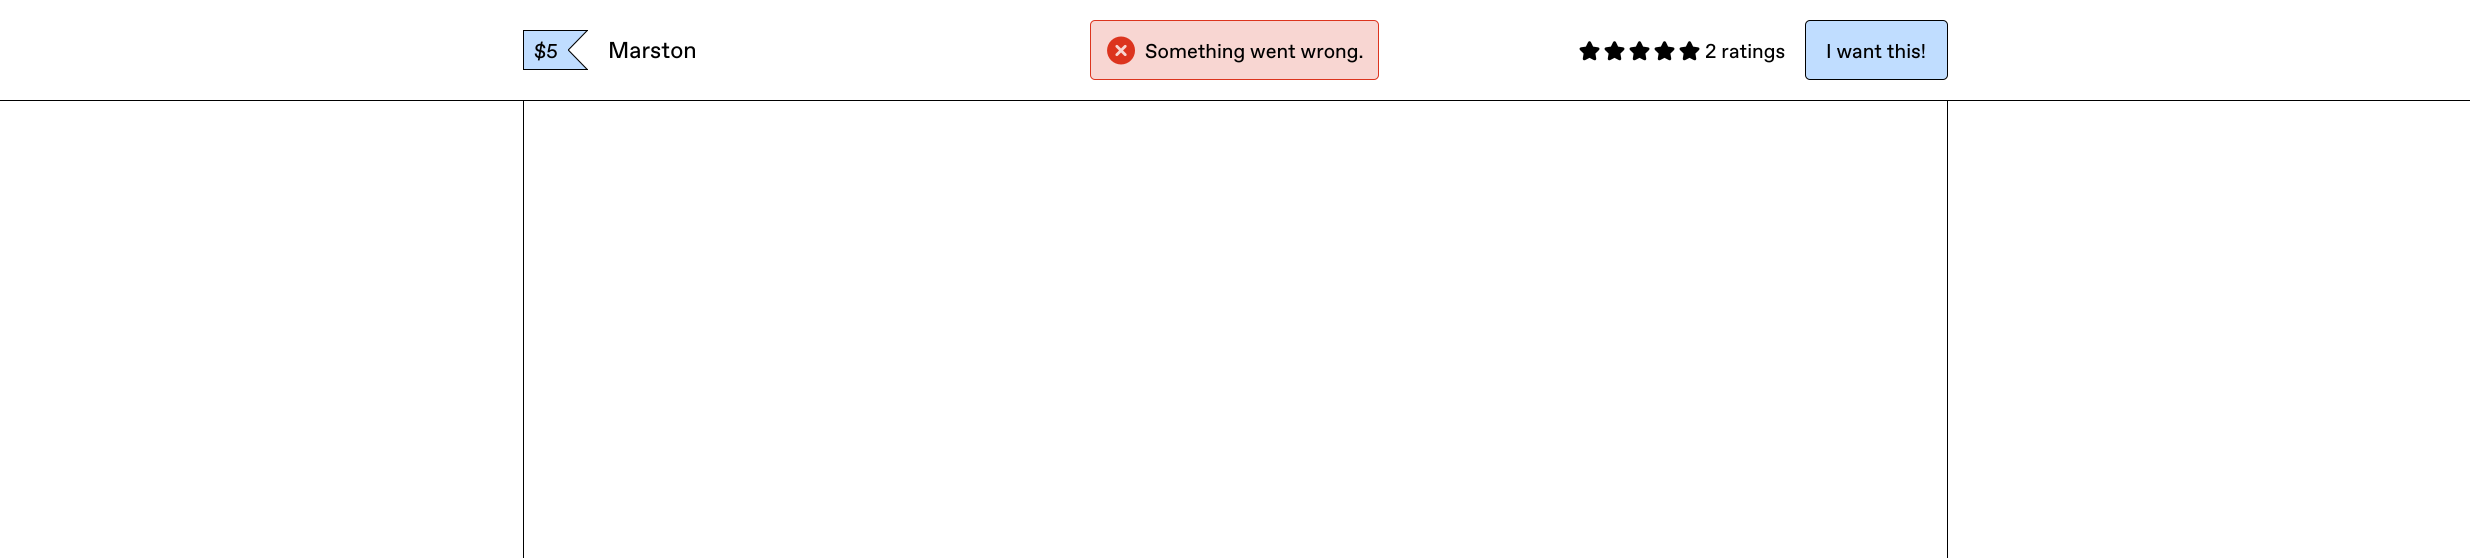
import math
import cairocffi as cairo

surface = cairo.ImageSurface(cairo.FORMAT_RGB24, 2470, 558)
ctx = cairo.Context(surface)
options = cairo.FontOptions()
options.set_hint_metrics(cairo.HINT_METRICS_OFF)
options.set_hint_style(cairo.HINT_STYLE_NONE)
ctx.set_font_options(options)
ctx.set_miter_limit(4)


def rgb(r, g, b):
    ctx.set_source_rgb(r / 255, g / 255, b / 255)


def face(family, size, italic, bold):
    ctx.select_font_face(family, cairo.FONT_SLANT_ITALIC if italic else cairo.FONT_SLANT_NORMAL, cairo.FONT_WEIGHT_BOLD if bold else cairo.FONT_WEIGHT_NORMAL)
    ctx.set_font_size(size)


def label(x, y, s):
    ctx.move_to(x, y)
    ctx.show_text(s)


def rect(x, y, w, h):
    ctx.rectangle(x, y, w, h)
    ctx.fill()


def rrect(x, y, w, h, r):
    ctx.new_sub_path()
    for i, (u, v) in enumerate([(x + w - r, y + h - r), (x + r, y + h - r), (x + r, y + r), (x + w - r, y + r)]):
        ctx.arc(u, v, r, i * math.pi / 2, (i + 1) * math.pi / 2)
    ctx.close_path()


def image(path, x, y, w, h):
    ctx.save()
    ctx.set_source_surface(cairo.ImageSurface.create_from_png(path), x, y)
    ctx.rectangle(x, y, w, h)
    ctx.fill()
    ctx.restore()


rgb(255, 255, 255)
ctx.paint()
ctx.rectangle(523.5, 80.5, 1424, 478)
rgb(0, 0, 0)
ctx.set_line_width(1)
ctx.stroke()
rect(0, 100, 2470, 1)
rgb(255, 255, 255)
rect(523, 80, 1425, 20)
rgb(0, 0, 0)
rect(523, 30, 65, 1)
rect(523, 69, 65, 1)
rect(523, 30, 1, 40)
rgb(192, 221, 255)
rect(524, 31, 44, 38)
rgb(0, 0, 0)
ctx.new_path()
ctx.move_to(567.5, 31)
ctx.line_to(587.5, 31)
ctx.line_to(569, 50)
ctx.close_path()
ctx.move_to(587.5, 69)
ctx.line_to(567.5, 69)
ctx.line_to(569, 50)
ctx.close_path()
ctx.fill()
rect(568, 48, 1, 4)
rgb(192, 221, 255)
ctx.new_path()
ctx.move_to(566, 31)
ctx.line_to(586, 31)
ctx.line_to(567.5, 50)
ctx.close_path()
ctx.move_to(586, 69)
ctx.line_to(566, 69)
ctx.line_to(567.5, 50)
ctx.close_path()
ctx.fill()
face('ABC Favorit', 20, 0, 0)
rgb(0, 0, 0)
label(534, 58, '$5')
face('ABC Favorit', 23, 0, 0)
label(608, 58, 'Marston')
image('image0.png', 1579, 41, 21, 20)
image('image0.png', 1604, 41, 21, 20)
image('image0.png', 1629, 41, 21, 20)
image('image0.png', 1654, 41, 21, 20)
image('image0.png', 1679, 41, 21, 20)
face('ABC Favorit', 20, 0, 0)
label(1705, 58, '2 ratings')
rgb(192, 221, 255)
rrect(1805.5, 20.5, 142, 59, 4.5)
ctx.fill_preserve()
rgb(0, 0, 0)
ctx.stroke()
label(1826, 58, 'I want this!')
rgb(248, 214, 210)
rrect(1090.5, 20.5, 288, 59, 4.5)
ctx.fill_preserve()
rgb(220, 52, 30)
ctx.stroke()
image('image1.png', 1107, 36, 28, 29)
rgb(0, 0, 0)
label(1145, 58, 'Something went wrong.')
surface.write_to_png('render.png')
